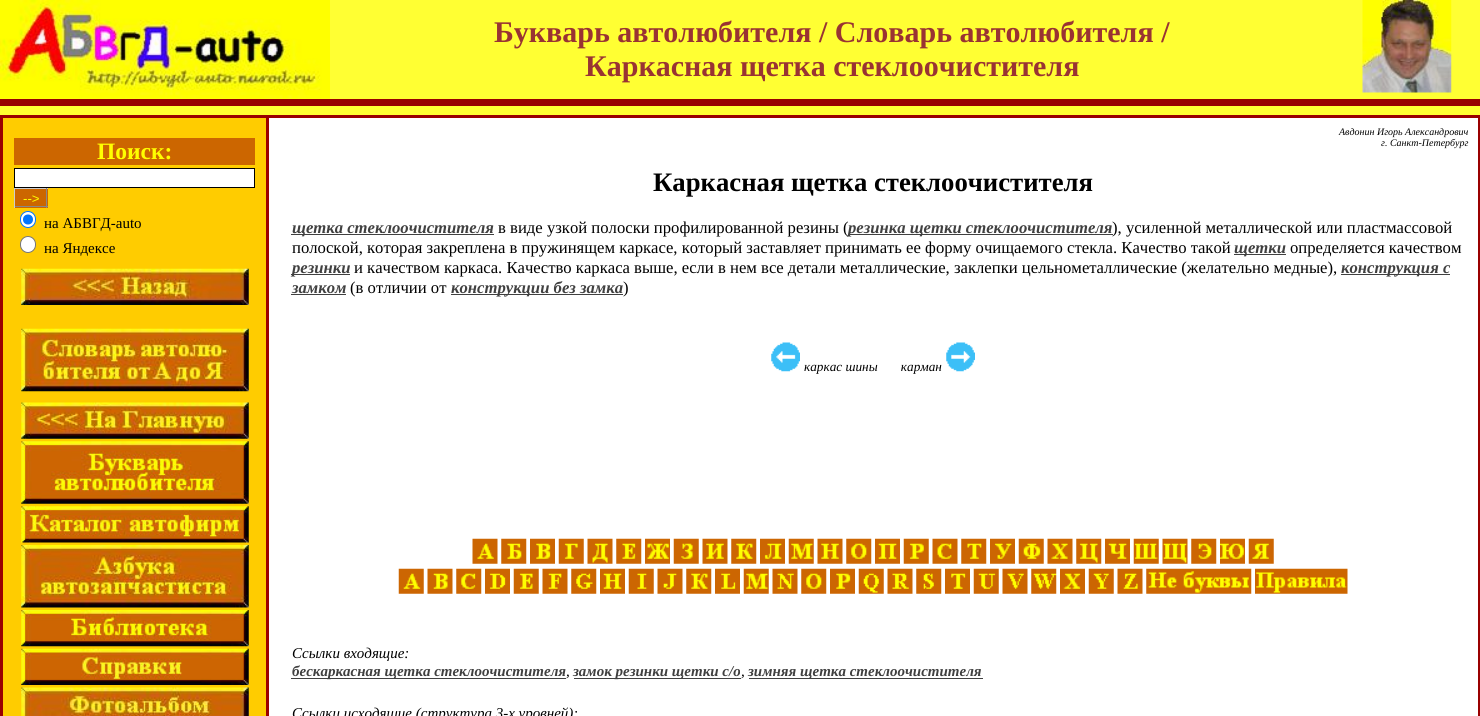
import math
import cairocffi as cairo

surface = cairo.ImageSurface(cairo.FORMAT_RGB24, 1480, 716)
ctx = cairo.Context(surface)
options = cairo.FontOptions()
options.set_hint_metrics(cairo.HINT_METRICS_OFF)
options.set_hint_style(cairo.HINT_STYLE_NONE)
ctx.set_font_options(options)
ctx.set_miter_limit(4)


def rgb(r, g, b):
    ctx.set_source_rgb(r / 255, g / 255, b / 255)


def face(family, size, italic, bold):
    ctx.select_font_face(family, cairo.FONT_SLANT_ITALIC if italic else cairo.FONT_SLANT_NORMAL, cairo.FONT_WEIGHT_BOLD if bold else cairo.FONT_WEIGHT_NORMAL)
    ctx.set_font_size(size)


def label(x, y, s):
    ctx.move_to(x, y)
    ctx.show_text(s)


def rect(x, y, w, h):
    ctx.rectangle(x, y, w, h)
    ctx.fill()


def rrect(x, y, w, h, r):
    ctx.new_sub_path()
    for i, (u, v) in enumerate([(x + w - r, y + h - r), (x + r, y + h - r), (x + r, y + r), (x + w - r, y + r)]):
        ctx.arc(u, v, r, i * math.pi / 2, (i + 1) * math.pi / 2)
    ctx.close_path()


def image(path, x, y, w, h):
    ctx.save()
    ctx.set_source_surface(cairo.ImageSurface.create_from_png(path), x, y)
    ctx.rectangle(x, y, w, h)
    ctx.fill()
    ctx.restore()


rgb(255, 255, 51)
ctx.paint()
image('image0.png', 0, 0, 330, 99)
face('Liberation Serif', 30, 0, 1)
rgb(153, 51, 51)
label(494, 42, 'Букварь автолюбителя / Словарь автолюбителя /')
label(585, 76, 'Каркасная щетка стеклоочистителя')
image('image1.png', 1362, 0, 90, 93)
rgb(153, 0, 0)
rect(0, 99, 1480, 7)
rect(0, 115, 1480, 601)
rgb(255, 204, 0)
rect(3, 118, 263, 598)
rgb(204, 102, 0)
rect(14, 138, 241, 27)
face('Liberation Serif', 23.5, 0, 1)
rgb(255, 255, 0)
label(97, 159, 'Поиск:')
rgb(255, 255, 255)
ctx.rectangle(14.5, 168.5, 240, 19)
ctx.fill_preserve()
rgb(0, 0, 0)
ctx.set_line_width(1)
ctx.stroke()
rgb(204, 102, 0)
rect(15, 189, 33, 19)
rgb(204, 204, 204)
rect(14, 188, 34, 1)
rgb(136, 136, 136)
rect(46, 188, 1, 20)
rect(14, 206, 34, 1)
rgb(204, 204, 204)
rect(14, 188, 1, 20)
face('Liberation Sans', 13.25, 0, 0)
rgb(255, 255, 0)
label(23, 203, '-->')
rgb(255, 255, 255)
rrect(20.5, 211.5, 15, 16, 7.5)
ctx.fill_preserve()
rgb(0, 117, 255)
ctx.stroke()
ctx.arc(28, 219.5, 5, 0, 2 * math.pi)
ctx.fill()
face('Liberation Serif', 15, 0, 0)
rgb(0, 0, 0)
label(44, 228, 'на АБВГД-auto')
rgb(255, 255, 255)
rrect(20.5, 236.5, 15, 16, 7.5)
ctx.fill_preserve()
rgb(118, 118, 118)
ctx.stroke()
rgb(0, 0, 0)
label(44, 253, 'на Яндексе')
image('image2.png', 21, 268, 228, 37)
image('image3.png', 21, 328, 228, 64)
image('image4.png', 21, 402, 228, 37)
image('image5.png', 21, 441, 228, 63)
image('image6.png', 21, 506, 228, 37)
image('image7.png', 21, 545, 228, 63)
image('image8.png', 21, 610, 228, 37)
image('image9.png', 21, 648, 228, 37)
image('image10.png', 21, 687, 228, 29)
rgb(255, 255, 255)
rect(269, 118, 1209, 598)
face('Liberation Serif', 10, 1, 0)
rgb(0, 0, 0)
label(1339, 135, 'Авдонин Игорь Александрович')
label(1381, 146, 'г. Санкт-Петербург')
face('Liberation Serif', 26.7, 0, 1)
label(653, 191, 'Каркасная щетка стеклоочистителя')
rgb(64, 64, 64)
rect(291, 234, 203, 1)
face('Liberation Serif', 16.67, 1, 1)
label(292, 233, 'щетка стеклоочистителя')
face('Liberation Serif', 16.67, 0, 0)
rgb(0, 0, 0)
label(498, 233, 'в виде узкой полоски профилированной резины (')
rgb(64, 64, 64)
rect(848, 234, 265, 1)
face('Liberation Serif', 16.67, 1, 1)
label(848, 233, 'резинка щетки стеклоочистителя')
face('Liberation Serif', 16.67, 0, 0)
rgb(0, 0, 0)
label(1112, 233, '), усиленной металлической или пластмассовой')
label(292, 253, 'полоской, которая закреплена в пружинящем каркасе, который заставляет принимать ее форму очищаемого стекла. Качество такой')
rgb(64, 64, 64)
rect(1234, 254, 52, 1)
face('Liberation Serif', 16.67, 1, 1)
label(1234, 253, 'щетки')
face('Liberation Serif', 16.67, 0, 0)
rgb(0, 0, 0)
label(1290, 253, 'определяется качеством')
rgb(64, 64, 64)
rect(291, 274, 59, 1)
face('Liberation Serif', 16.67, 1, 1)
label(292, 273, 'резинки')
face('Liberation Serif', 16.67, 0, 0)
rgb(0, 0, 0)
label(354, 273, 'и качеством каркаса. Качество каркаса выше, если в нем все детали металлические, заклепки цельнометаллические (желательно медные),')
rgb(64, 64, 64)
rect(1341, 274, 109, 1)
face('Liberation Serif', 16.67, 1, 1)
label(1341, 273, 'конструкция с')
label(292, 293, 'замком')
rect(291, 294, 55, 1)
face('Liberation Serif', 16.67, 0, 0)
rgb(0, 0, 0)
label(350, 293, '(в отличии от')
rgb(64, 64, 64)
rect(451, 294, 172, 1)
face('Liberation Serif', 16.67, 1, 1)
label(451, 293, 'конструкции без замка')
face('Liberation Serif', 16.67, 0, 0)
rgb(0, 0, 0)
label(623, 293, ')')
image('image11.png', 771, 342, 29, 30)
face('Liberation Serif', 13.25, 1, 0)
label(804, 371, 'каркас шины       карман')
image('image12.png', 946, 342, 29, 30)
image('image13.png', 472, 538, 26, 26)
image('image14.png', 501, 538, 26, 26)
image('image15.png', 530, 538, 25, 26)
image('image16.png', 558, 538, 26, 26)
image('image17.png', 587, 538, 26, 26)
image('image18.png', 616, 538, 26, 26)
image('image19.png', 645, 538, 25, 26)
image('image20.png', 673, 538, 26, 26)
image('image21.png', 702, 538, 26, 26)
image('image22.png', 731, 538, 26, 26)
image('image23.png', 760, 538, 25, 26)
image('image24.png', 788, 538, 26, 26)
image('image25.png', 817, 538, 26, 26)
image('image26.png', 846, 538, 26, 26)
image('image27.png', 875, 538, 25, 26)
image('image28.png', 903, 538, 26, 26)
image('image29.png', 932, 538, 26, 26)
image('image30.png', 961, 538, 26, 26)
image('image31.png', 990, 538, 25, 26)
image('image32.png', 1018, 538, 26, 26)
image('image33.png', 1047, 538, 26, 26)
image('image34.png', 1076, 538, 26, 26)
image('image35.png', 1105, 538, 25, 26)
image('image36.png', 1133, 538, 26, 26)
image('image37.png', 1162, 538, 26, 26)
image('image38.png', 1191, 538, 26, 26)
image('image39.png', 1220, 538, 25, 26)
image('image40.png', 1248, 538, 26, 26)
image('image41.png', 398, 568, 26, 26)
image('image42.png', 427, 568, 26, 26)
image('image43.png', 456, 568, 26, 26)
image('image44.png', 485, 568, 25, 26)
image('image45.png', 513, 568, 26, 26)
image('image46.png', 542, 568, 26, 26)
image('image47.png', 571, 568, 26, 26)
image('image48.png', 600, 568, 25, 26)
image('image49.png', 628, 568, 26, 26)
image('image50.png', 657, 568, 26, 26)
image('image22.png', 686, 568, 26, 26)
image('image51.png', 715, 568, 25, 26)
image('image52.png', 743, 568, 26, 26)
image('image53.png', 772, 568, 26, 26)
image('image26.png', 801, 568, 26, 26)
image('image54.png', 830, 568, 25, 26)
image('image55.png', 858, 568, 26, 26)
image('image56.png', 887, 568, 26, 26)
image('image57.png', 916, 568, 26, 26)
image('image58.png', 945, 568, 25, 26)
image('image59.png', 973, 568, 26, 26)
image('image60.png', 1002, 568, 26, 26)
image('image61.png', 1031, 568, 26, 26)
image('image62.png', 1060, 568, 25, 26)
image('image63.png', 1088, 568, 26, 26)
image('image64.png', 1117, 568, 26, 26)
image('image65.png', 1146, 568, 106, 26)
image('image66.png', 1255, 568, 93, 26)
face('Liberation Serif', 15, 1, 0)
label(292, 658, 'Ссылки входящие:')
rgb(64, 64, 64)
rect(291, 678, 275, 1)
face('Liberation Serif', 15, 1, 1)
label(292, 676, 'бескаркасная щетка стеклоочистителя')
face('Liberation Serif', 15, 1, 0)
rgb(0, 0, 0)
label(566, 676, ',')
rgb(64, 64, 64)
rect(574, 678, 167, 1)
face('Liberation Serif', 15, 1, 1)
label(573, 676, 'замок резинки щетки с/о')
face('Liberation Serif', 15, 1, 0)
rgb(0, 0, 0)
label(741, 676, ',')
rgb(64, 64, 64)
rect(749, 678, 234, 1)
face('Liberation Serif', 15, 1, 1)
label(748, 676, 'зимняя щетка стеклоочистителя')
face('Liberation Serif', 15, 1, 0)
rgb(0, 0, 0)
label(292, 718, 'Ссылки исходящие (структура 3-х уровней):')
surface.write_to_png('render.png')
